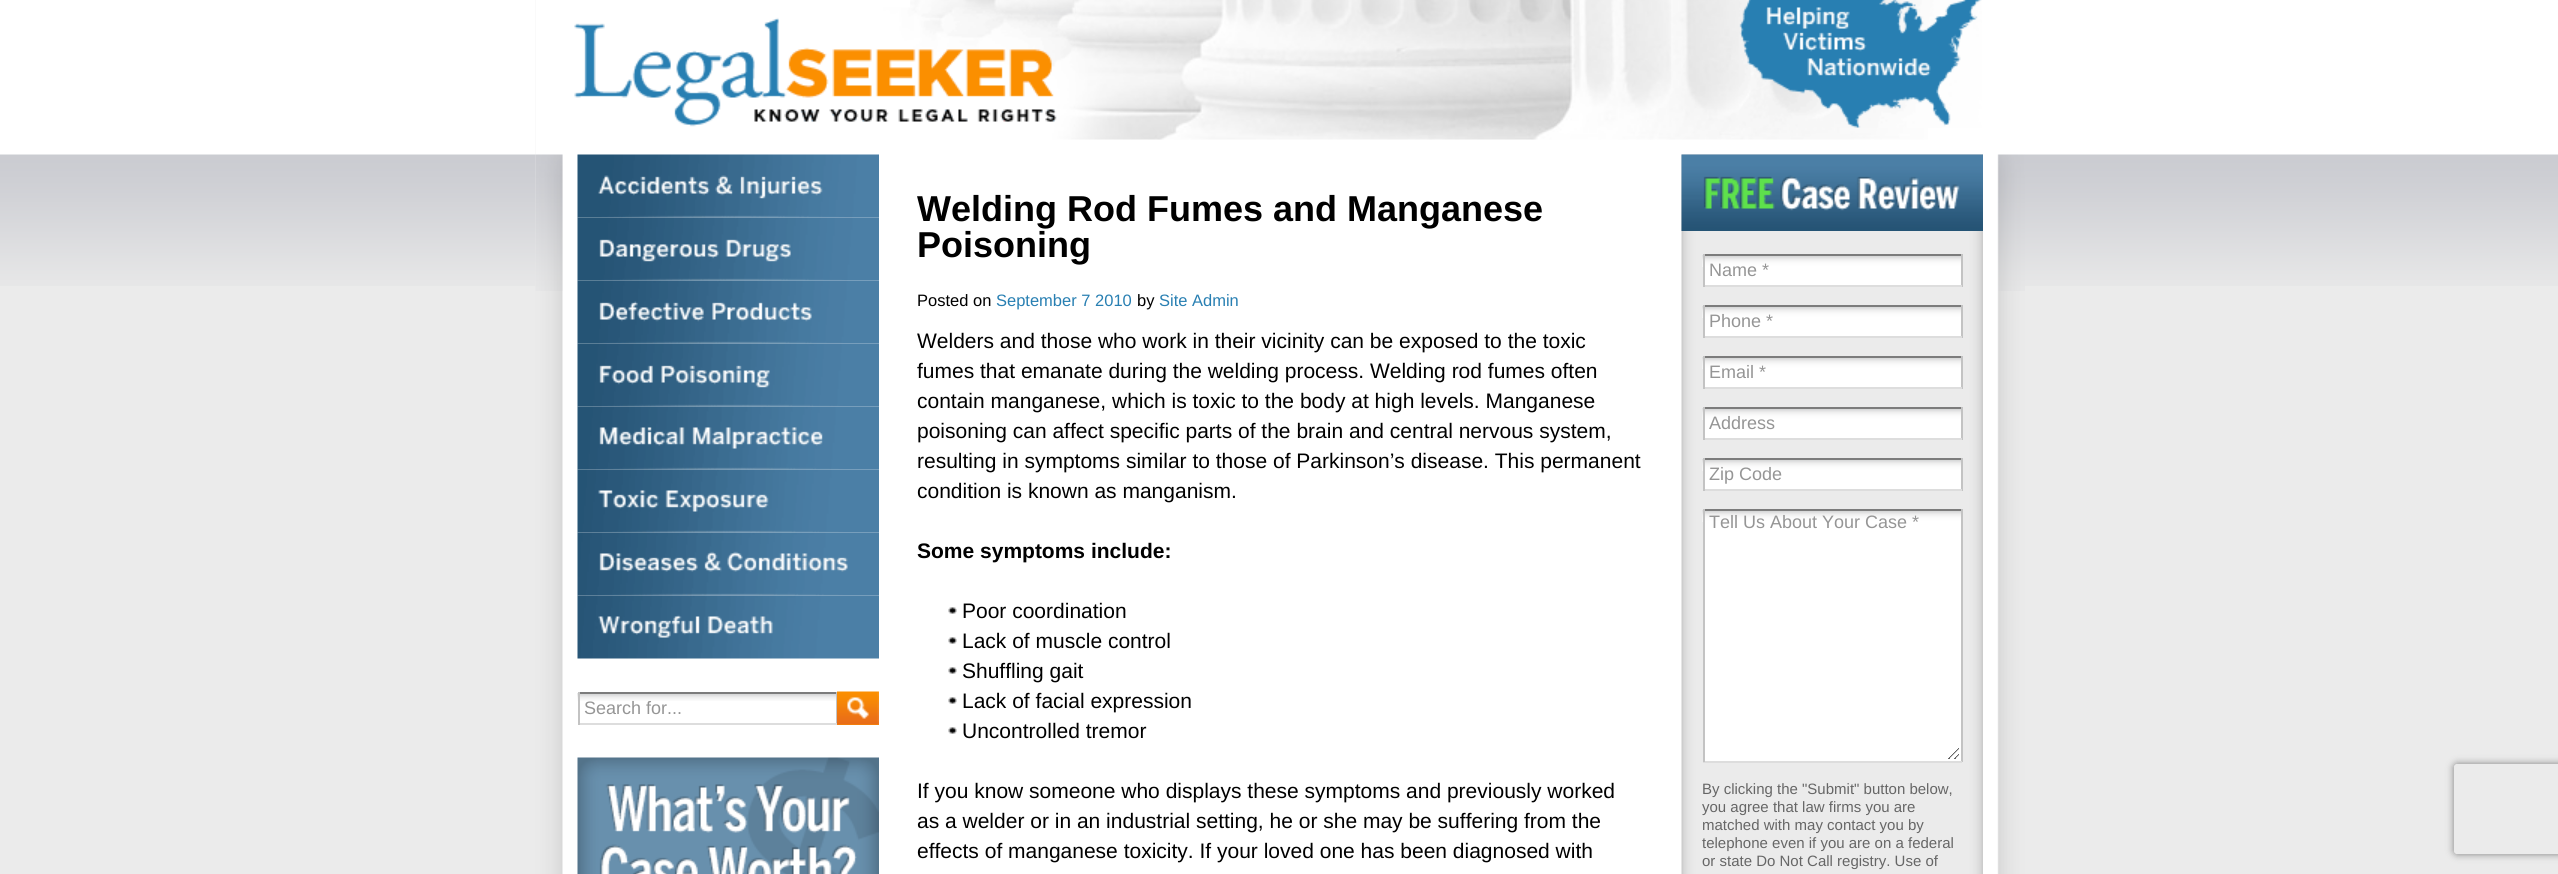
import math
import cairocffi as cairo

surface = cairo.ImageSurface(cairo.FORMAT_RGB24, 2558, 874)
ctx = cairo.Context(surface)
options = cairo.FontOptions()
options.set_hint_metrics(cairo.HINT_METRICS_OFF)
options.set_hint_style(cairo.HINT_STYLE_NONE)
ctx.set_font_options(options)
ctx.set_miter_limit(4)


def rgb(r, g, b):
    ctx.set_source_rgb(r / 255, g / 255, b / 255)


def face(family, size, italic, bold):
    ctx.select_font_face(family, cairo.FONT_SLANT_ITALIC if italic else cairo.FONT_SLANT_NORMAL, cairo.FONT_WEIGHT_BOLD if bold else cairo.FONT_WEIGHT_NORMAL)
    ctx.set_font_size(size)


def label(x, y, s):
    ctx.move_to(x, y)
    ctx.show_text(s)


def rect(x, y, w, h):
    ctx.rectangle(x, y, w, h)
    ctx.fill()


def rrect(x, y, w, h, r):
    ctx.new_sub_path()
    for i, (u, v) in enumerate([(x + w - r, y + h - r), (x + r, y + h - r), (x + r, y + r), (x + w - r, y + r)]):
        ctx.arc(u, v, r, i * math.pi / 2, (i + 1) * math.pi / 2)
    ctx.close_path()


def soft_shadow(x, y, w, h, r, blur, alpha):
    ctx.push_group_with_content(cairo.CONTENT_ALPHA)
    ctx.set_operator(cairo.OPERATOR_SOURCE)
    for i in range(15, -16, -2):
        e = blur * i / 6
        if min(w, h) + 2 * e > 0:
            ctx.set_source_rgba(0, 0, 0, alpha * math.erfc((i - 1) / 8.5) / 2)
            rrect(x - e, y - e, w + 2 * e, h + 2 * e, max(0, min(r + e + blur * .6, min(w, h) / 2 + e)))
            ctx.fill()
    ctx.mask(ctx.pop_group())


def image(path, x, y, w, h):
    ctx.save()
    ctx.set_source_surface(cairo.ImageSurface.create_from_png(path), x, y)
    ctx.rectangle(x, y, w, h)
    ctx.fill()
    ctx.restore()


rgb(235, 235, 235)
ctx.paint()
image('image0.png', 0, 0, 2558, 286)
image('image1.png', 535, 0, 1490, 874)
image('image2.png', 535, 0, 1490, 291)
image('image3.png', 910, 0, 1018, 140)
image('image4.png', 574, 7, 501, 120)
image('image5.png', 1739, 0, 243, 128)
image('image6.png', 577, 154, 302, 64)
image('image7.png', 577, 217, 302, 64)
image('image8.png', 577, 280, 302, 64)
image('image9.png', 577, 343, 302, 64)
image('image10.png', 577, 406, 302, 64)
image('image11.png', 577, 469, 302, 64)
image('image12.png', 577, 532, 302, 64)
image('image13.png', 577, 595, 302, 64)
image('image14.png', 577, 693, 259, 8)
rgb(124, 124, 124)
rect(578, 692, 259, 2)
rgb(195, 195, 195)
rect(836, 692, 1, 33)
rgb(221, 221, 221)
rect(578, 723, 259, 2)
rgb(195, 195, 195)
rect(578, 692, 2, 33)
face('Liberation Sans', 18, 0, 0)
rgb(149, 149, 149)
label(584, 714, 'Search for...')
rgb(251, 143, 0)
rect(837, 724, 42, 1)
image('image15.png', 837, 691, 42, 34)
image('image16.png', 577, 757, 302, 117)
face('Liberation Sans', 36, 0, 1)
rgb(0, 0, 0)
label(917, 221, 'Welding Rod Fumes and Manganese')
label(917, 257, 'Poisoning')
face('Liberation Sans', 16.5, 0, 0)
label(917, 306, 'Posted on')
rgb(40, 127, 178)
label(996, 306, 'September 7 2010')
rgb(0, 0, 0)
label(1137, 306, 'by')
rgb(40, 127, 178)
label(1159, 306, 'Site Admin')
face('Liberation Sans', 21, 0, 0)
rgb(0, 0, 0)
label(917, 348, 'Welders and those who work in their vicinity can be exposed to the toxic')
label(917, 378, 'fumes that emanate during the welding process. Welding rod fumes often')
label(917, 408, 'contain manganese, which is toxic to the body at high levels. Manganese')
label(917, 438, 'poisoning can affect specific parts of the brain and central nervous system,')
label(917, 468, 'resulting in symptoms similar to those of Parkinson’s disease. This permanent')
label(917, 498, 'condition is known as manganism.')
face('Liberation Sans', 21, 0, 1)
label(917, 558, 'Some symptoms include:')
image('image17.png', 948, 607, 9, 7)
face('Liberation Sans', 21, 0, 0)
label(962, 618, 'Poor coordination')
image('image17.png', 948, 637, 9, 7)
label(962, 648, 'Lack of muscle control')
image('image17.png', 948, 667, 9, 7)
label(962, 678, 'Shuffling gait')
image('image17.png', 948, 697, 9, 7)
label(962, 708, 'Lack of facial expression')
image('image17.png', 948, 727, 9, 7)
label(962, 738, 'Uncontrolled tremor')
label(917, 798, 'If you know someone who displays these symptoms and previously worked')
label(917, 828, 'as a welder or in an industrial setting, he or she may be suffering from the')
label(917, 858, 'effects of manganese toxicity. If your loved one has been diagnosed with')
image('image18.png', 1681, 154, 302, 720)
image('image19.png', 1681, 154, 302, 77)
rgb(255, 255, 255)
rect(1705, 267, 256, 18)
image('image20.png', 1702, 255, 259, 12)
rgb(124, 124, 124)
rect(1703, 254, 259, 2)
rgb(195, 195, 195)
rect(1961, 254, 2, 33)
rgb(221, 221, 221)
rect(1703, 285, 259, 2)
rgb(195, 195, 195)
rect(1703, 254, 2, 33)
face('Liberation Sans', 18, 0, 0)
rgb(149, 149, 149)
label(1709, 276, 'Name *')
rgb(255, 255, 255)
rect(1705, 318, 256, 18)
image('image20.png', 1702, 306, 259, 12)
rgb(124, 124, 124)
rect(1703, 305, 259, 2)
rgb(195, 195, 195)
rect(1961, 305, 2, 33)
rgb(221, 221, 221)
rect(1703, 336, 259, 2)
rgb(195, 195, 195)
rect(1703, 305, 2, 33)
rgb(149, 149, 149)
label(1709, 327, 'Phone *')
rgb(255, 255, 255)
rect(1705, 369, 256, 18)
image('image20.png', 1702, 357, 259, 12)
rgb(124, 124, 124)
rect(1703, 356, 259, 2)
rgb(195, 195, 195)
rect(1961, 356, 2, 33)
rgb(221, 221, 221)
rect(1703, 387, 259, 2)
rgb(195, 195, 195)
rect(1703, 356, 2, 33)
rgb(149, 149, 149)
label(1709, 378, 'Email *')
rgb(255, 255, 255)
rect(1705, 420, 256, 18)
image('image20.png', 1702, 408, 259, 12)
rgb(124, 124, 124)
rect(1703, 407, 259, 2)
rgb(195, 195, 195)
rect(1961, 407, 2, 33)
rgb(221, 221, 221)
rect(1703, 438, 259, 2)
rgb(195, 195, 195)
rect(1703, 407, 2, 33)
rgb(149, 149, 149)
label(1709, 429, 'Address')
rgb(255, 255, 255)
rect(1705, 471, 256, 18)
image('image20.png', 1702, 459, 259, 12)
rgb(124, 124, 124)
rect(1703, 458, 259, 2)
rgb(195, 195, 195)
rect(1961, 458, 2, 33)
rgb(221, 221, 221)
rect(1703, 489, 259, 2)
rgb(195, 195, 195)
rect(1703, 458, 2, 33)
rgb(149, 149, 149)
label(1709, 480, 'Zip Code')
rgb(255, 255, 255)
rect(1705, 522, 256, 239)
image('image21.png', 1702, 510, 259, 249)
rgb(124, 124, 124)
rect(1703, 509, 259, 2)
rgb(195, 195, 195)
rect(1961, 509, 2, 253)
rgb(221, 221, 221)
rect(1703, 761, 259, 2)
rgb(195, 195, 195)
rect(1703, 509, 2, 253)
rgb(149, 149, 149)
label(1709, 528, 'Tell Us About Your Case *')
face('Liberation Sans', 15, 0, 0)
rgb(102, 102, 102)
label(1702, 794, 'By clicking the "Submit" button below,')
label(1702, 812, 'you agree that law firms you are')
label(1702, 830, 'matched with may contact you by')
label(1702, 848, 'telephone even if you are on a federal')
label(1702, 866, 'or state Do Not Call registry. Use of')
ctx.save()
ctx.set_fill_rule(cairo.FILL_RULE_EVEN_ODD)
ctx.new_path()
ctx.move_to(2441, 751)
ctx.line_to(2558, 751)
ctx.line_to(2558, 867)
ctx.line_to(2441, 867)
ctx.close_path()
ctx.move_to(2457, 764)
ctx.line_to(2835, 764)
ctx.curve_to(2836.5, 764, 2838, 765.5, 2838, 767)
ctx.line_to(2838, 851)
ctx.curve_to(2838, 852.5, 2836.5, 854, 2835, 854)
ctx.line_to(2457, 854)
ctx.curve_to(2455.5, 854, 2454, 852.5, 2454, 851)
ctx.line_to(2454, 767)
ctx.curve_to(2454, 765.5, 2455.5, 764, 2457, 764)
ctx.close_path()
ctx.clip()
rgb(128, 128, 128)
soft_shadow(2454, 764, 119, 90, 3, 4, 1)
ctx.restore()
surface.write_to_png('render.png')
